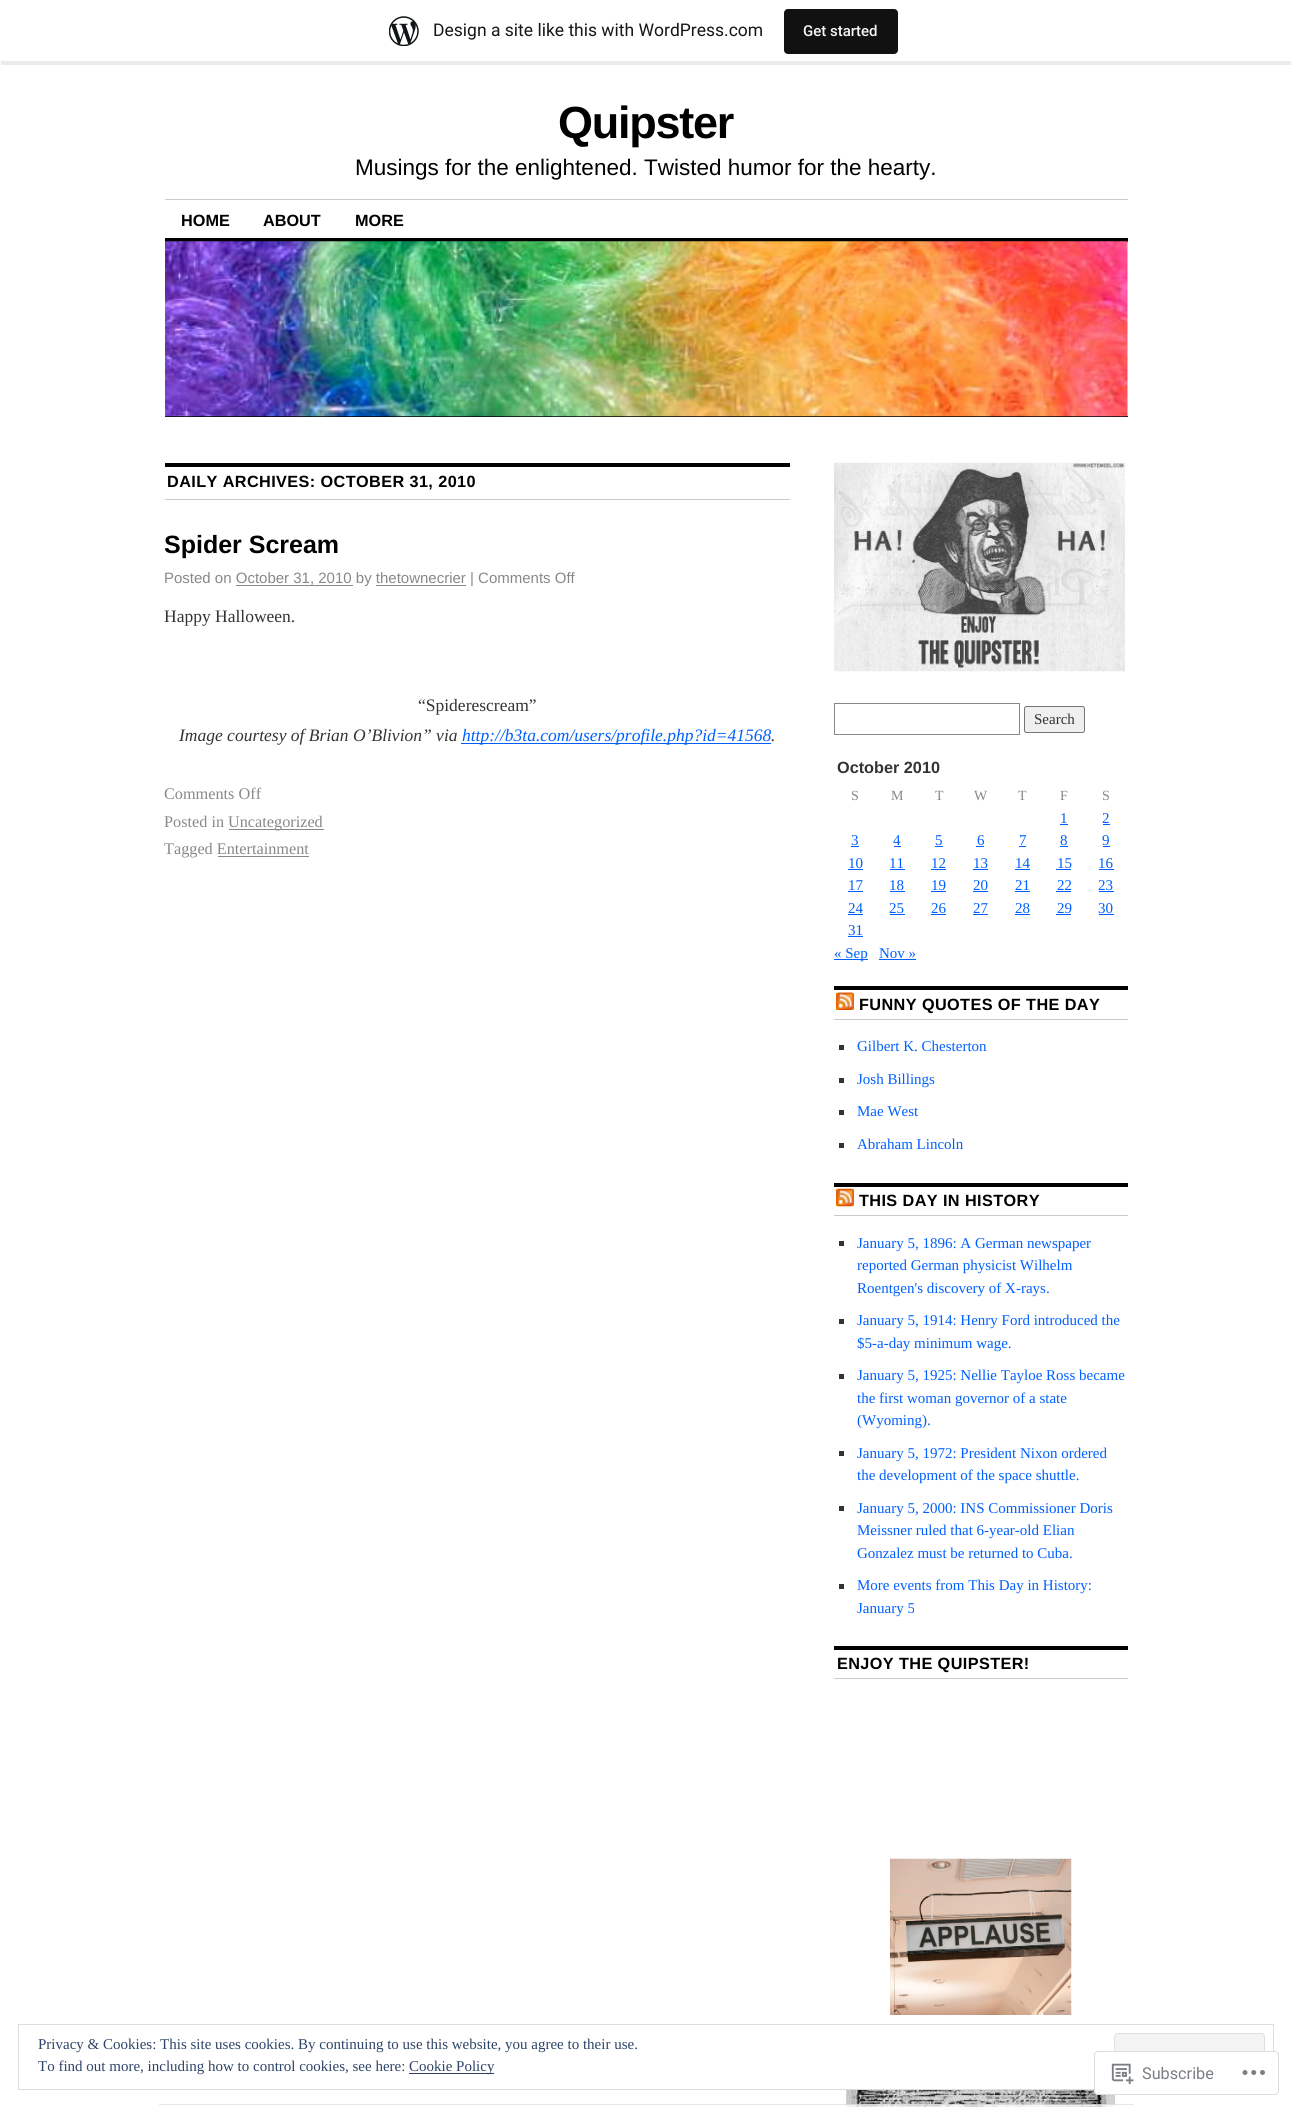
import math
import cairocffi as cairo

surface = cairo.ImageSurface(cairo.FORMAT_RGB24, 1291, 2107)
ctx = cairo.Context(surface)
options = cairo.FontOptions()
options.set_hint_metrics(cairo.HINT_METRICS_OFF)
options.set_hint_style(cairo.HINT_STYLE_NONE)
ctx.set_font_options(options)
ctx.set_miter_limit(4)


def rgb(r, g, b):
    ctx.set_source_rgb(r / 255, g / 255, b / 255)


def face(family, size, italic, bold):
    ctx.select_font_face(family, cairo.FONT_SLANT_ITALIC if italic else cairo.FONT_SLANT_NORMAL, cairo.FONT_WEIGHT_BOLD if bold else cairo.FONT_WEIGHT_NORMAL)
    ctx.set_font_size(size)


def label(x, y, s):
    ctx.move_to(x, y)
    ctx.show_text(s)


def tracked(x, y, s, letter, word):
    ctx.move_to(x, y)
    for ch in s:
        ctx.show_text(ch)
        ctx.rel_move_to(letter + word * (ch == ' '), 0)


def rect(x, y, w, h):
    ctx.rectangle(x, y, w, h)
    ctx.fill()


def rrect(x, y, w, h, r):
    ctx.new_sub_path()
    for i, (u, v) in enumerate([(x + w - r, y + h - r), (x + r, y + h - r), (x + r, y + r), (x + w - r, y + r)]):
        ctx.arc(u, v, r, i * math.pi / 2, (i + 1) * math.pi / 2)
    ctx.close_path()


def image(path, x, y, w, h):
    ctx.save()
    ctx.set_source_surface(cairo.ImageSurface.create_from_png(path), x, y)
    ctx.rectangle(x, y, w, h)
    ctx.fill()
    ctx.restore()


rgb(255, 255, 255)
ctx.paint()
ctx.set_source_rgba(0, 0, 0, 0.08)
ctx.new_path()
ctx.move_to(1, 61)
ctx.line_to(1, 65)
ctx.line_to(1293, 65)
ctx.line_to(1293, 4)
ctx.line_to(1291, 4)
ctx.line_to(1291, 61)
ctx.close_path()
ctx.fill()
image('image0.png', 389, 16, 30, 30)
face('Roboto', 17.5, 0, 0)
rgb(23, 23, 23)
label(433, 36, 'Design a site like this with WordPress.com')
rgb(17, 17, 17)
rrect(784, 9, 114, 45, 4)
ctx.fill()
face('Roboto Medium', 15, 0, 0)
rgb(246, 247, 247)
label(803, 36, 'Get started')
face('Liberation Sans', 45, 0, 1)
rgb(0, 0, 0)
tracked(558, 138, 'Quipster', -1.25, 0)
face('Liberation Sans', 22.5, 0, 0)
label(355, 175, 'Musings for the enlightened. Twisted humor for the hearty.')
rgb(204, 204, 204)
rect(165, 199, 963, 1)
face('Liberation Sans', 16.25, 0, 1)
rgb(0, 0, 0)
label(181, 226, 'HOME')
label(263, 226, 'ABOUT')
label(355, 226, 'MORE')
rect(165, 238, 963, 4)
rect(165, 416, 963, 1)
image('image1.png', 165, 241, 963, 176)
rect(165, 463, 625, 4)
rgb(204, 204, 204)
rect(165, 499, 625, 1)
rgb(0, 0, 0)
tracked(167, 487, 'DAILY ARCHIVES: OCTOBER 31, 2010', 0.4, 0)
face('Liberation Sans', 25, 0, 1)
label(164, 553, 'Spider Scream')
face('Liberation Sans', 15, 0, 0)
rgb(136, 136, 136)
label(164, 583, 'Posted on October 31, 2010 by thetownecrier | Comments Off')
rect(236, 585, 117, 1)
rect(376, 585, 90, 1)
face('Liberation Serif', 17.5, 0, 0)
rgb(51, 51, 51)
label(164, 622, 'Happy Halloween.')
label(418, 711, '“Spiderescream”')
face('Liberation Serif', 17.5, 1, 0)
label(179, 741, 'Image courtesy of Brian O’Blivion” via')
rgb(0, 96, 255)
rect(461, 743, 310, 1)
label(462, 741, 'http://b3ta.com/users/profile.php?id=41568')
rgb(51, 51, 51)
label(771, 741, '.')
face('Liberation Serif', 16.25, 0, 0)
rgb(136, 136, 136)
label(164, 799, 'Comments Off')
label(164, 827, 'Posted in')
rect(229, 829, 95, 1)
label(228, 827, 'Uncategorized')
label(164, 854, 'Tagged Entertainment')
rect(218, 856, 91, 1)
image('image2.png', 834, 462, 291, 210)
ctx.rectangle(834.5, 703.5, 185, 31)
ctx.set_line_width(1)
ctx.stroke()
rgb(239, 239, 239)
rrect(1024.5, 706.5, 60, 26, 2)
ctx.fill_preserve()
rgb(118, 118, 118)
ctx.stroke()
face('Liberation Serif', 15, 0, 0)
rgb(51, 51, 51)
label(1034, 724, 'Search')
face('Liberation Sans', 16.25, 0, 1)
label(837, 773, 'October 2010')
face('Liberation Serif', 14, 0, 0)
rgb(136, 136, 136)
label(851, 800, 'S')
label(891, 800, 'M')
label(935, 800, 'T')
label(974, 800, 'W')
label(1018, 800, 'T')
label(1060, 800, 'F')
label(1102, 800, 'S')
face('Liberation Serif', 15, 0, 0)
rgb(0, 96, 255)
label(1060, 823, '1')
rect(1060, 824, 8, 1)
label(1102, 823, '2')
rect(1103, 824, 7, 1)
label(851, 845, '3')
rect(851, 846, 8, 1)
label(893, 845, '4')
rect(894, 846, 7, 1)
label(935, 845, '5')
rect(935, 846, 8, 1)
label(977, 845, '6')
rect(976, 846, 8, 1)
label(1019, 845, '7')
rect(1019, 846, 7, 1)
label(1060, 845, '8')
rect(1060, 846, 8, 1)
label(1102, 845, '9')
rect(1103, 846, 7, 1)
label(848, 868, '10')
rect(848, 869, 15, 1)
label(889, 868, '11')
rect(890, 869, 15, 1)
label(931, 868, '12')
rect(931, 869, 15, 1)
label(973, 868, '13')
rect(973, 869, 15, 1)
label(1015, 868, '14')
rect(1015, 869, 15, 1)
label(1057, 868, '15')
rect(1056, 869, 15, 1)
label(1098, 868, '16')
rect(1099, 869, 15, 1)
label(848, 890, '17')
rect(848, 891, 15, 1)
label(889, 890, '18')
rect(890, 891, 15, 1)
label(931, 890, '19')
rect(931, 891, 15, 1)
label(973, 890, '20')
rect(973, 891, 15, 1)
label(1015, 890, '21')
rect(1015, 891, 15, 1)
label(1057, 890, '22')
rect(1056, 891, 15, 1)
label(1098, 890, '23')
rect(1099, 891, 15, 1)
label(848, 913, '24')
rect(848, 914, 15, 1)
label(889, 913, '25')
rect(890, 914, 15, 1)
label(931, 913, '26')
rect(931, 914, 15, 1)
label(973, 913, '27')
rect(973, 914, 15, 1)
label(1015, 913, '28')
rect(1015, 914, 15, 1)
label(1057, 913, '29')
rect(1056, 914, 15, 1)
label(1098, 913, '30')
rect(1099, 914, 15, 1)
label(848, 935, '31')
rect(848, 936, 15, 1)
rect(834, 959, 34, 1)
label(834, 958, '« Sep')
label(879, 958, 'Nov »')
rect(879, 959, 37, 1)
rgb(0, 0, 0)
rect(834, 986, 294, 4)
rgb(204, 204, 204)
rect(834, 1019, 294, 1)
rgb(255, 165, 0)
rect(836, 993, 18, 17)
image('image3.png', 836, 992, 18, 18)
face('Liberation Sans', 16.25, 0, 1)
rgb(0, 0, 0)
tracked(859, 1010, 'FUNNY QUOTES OF THE DAY', 0.4, 0)
rgb(51, 51, 51)
rect(839, 1045, 5, 5)
face('Liberation Serif', 15, 0, 0)
rgb(0, 96, 255)
label(857, 1051, 'Gilbert K. Chesterton')
rgb(51, 51, 51)
rect(839, 1078, 5, 5)
rgb(0, 96, 255)
label(857, 1084, 'Josh Billings')
rgb(51, 51, 51)
rect(839, 1110, 5, 5)
rgb(0, 96, 255)
label(857, 1116, 'Mae West')
rgb(51, 51, 51)
rect(839, 1143, 5, 5)
rgb(0, 96, 255)
label(857, 1149, 'Abraham Lincoln')
rgb(0, 0, 0)
rect(834, 1183, 294, 4)
rgb(204, 204, 204)
rect(834, 1215, 294, 1)
rgb(255, 165, 0)
rect(836, 1189, 18, 17)
image('image4.png', 836, 1188, 18, 19)
face('Liberation Sans', 16.25, 0, 1)
rgb(0, 0, 0)
tracked(859, 1206, 'THIS DAY IN HISTORY', 0.4, 0)
rgb(51, 51, 51)
rect(839, 1241, 5, 5)
face('Liberation Serif', 15, 0, 0)
rgb(0, 96, 255)
label(857, 1248, 'January 5, 1896: A German newspaper')
label(857, 1270, 'reported German physicist Wilhelm')
label(857, 1293, 'Roentgen\'s discovery of X-rays.')
rgb(51, 51, 51)
rect(839, 1319, 5, 5)
rgb(0, 96, 255)
label(857, 1325, 'January 5, 1914: Henry Ford introduced the')
label(857, 1348, '$5-a-day minimum wage.')
rgb(51, 51, 51)
rect(839, 1374, 5, 5)
rgb(0, 96, 255)
label(857, 1380, 'January 5, 1925: Nellie Tayloe Ross became')
label(857, 1403, 'the first woman governor of a state')
label(857, 1425, '(Wyoming).')
rgb(51, 51, 51)
rect(839, 1451, 5, 5)
rgb(0, 96, 255)
label(857, 1458, 'January 5, 1972: President Nixon ordered')
label(857, 1480, 'the development of the space shuttle.')
rgb(51, 51, 51)
rect(839, 1506, 5, 5)
rgb(0, 96, 255)
label(857, 1513, 'January 5, 2000: INS Commissioner Doris')
label(857, 1535, 'Meissner ruled that 6-year-old Elian')
label(857, 1558, 'Gonzalez must be returned to Cuba.')
rgb(51, 51, 51)
rect(839, 1584, 5, 5)
rgb(0, 96, 255)
label(857, 1590, 'More events from This Day in History:')
label(857, 1613, 'January 5')
rgb(0, 0, 0)
rect(834, 1646, 294, 4)
rgb(204, 204, 204)
rect(834, 1678, 294, 1)
face('Liberation Sans', 16.25, 0, 1)
rgb(0, 0, 0)
tracked(837, 1669, 'ENJOY THE QUIPSTER!', 0.4, 0)
image('image5.png', 890, 1858, 182, 157)
image('image6.png', 846, 2090, 269, 17)
ctx.rectangle(18.5, 2024.5, 1255, 65)
rgb(222, 222, 222)
ctx.stroke()
face('Liberation Serif', 15, 0, 0)
rgb(46, 68, 103)
label(38, 2049, 'Privacy & Cookies: This site uses cookies. By continuing to use this website, you agree to their use.')
rgb(243, 243, 243)
rrect(1114.5, 2033.5, 150, 47, 3.5)
ctx.fill_preserve()
rgb(222, 222, 222)
ctx.stroke()
rgb(46, 68, 103)
label(38, 2071, 'To find out more, including how to control cookies, see here:')
rect(409, 2073, 85, 1)
label(409, 2071, 'Cookie Policy')
ctx.set_source_rgba(1, 1, 1, 0.98)
rrect(1094, 2051, 185, 44, 4)
ctx.fill()
rrect(1094.5, 2051.5, 184, 43, 3.5)
ctx.set_source_rgba(0.863, 0.863, 0.871, 0.98)
ctx.stroke()
image('image7.png', 1111, 2063, 23, 22)
face('Roboto', 16.25, 0, 0)
rgb(122, 126, 132)
label(1142, 2079, 'Subscribe')
image('image8.png', 1242, 2070, 23, 5)
ctx.set_source_rgba(1, 1, 1, 0.8)
rect(846, 2104, 269, 3)
ctx.set_source_rgba(0, 0, 0, 0.1)
rect(159, 2104, 975, 1)
surface.write_to_png('render.png')
